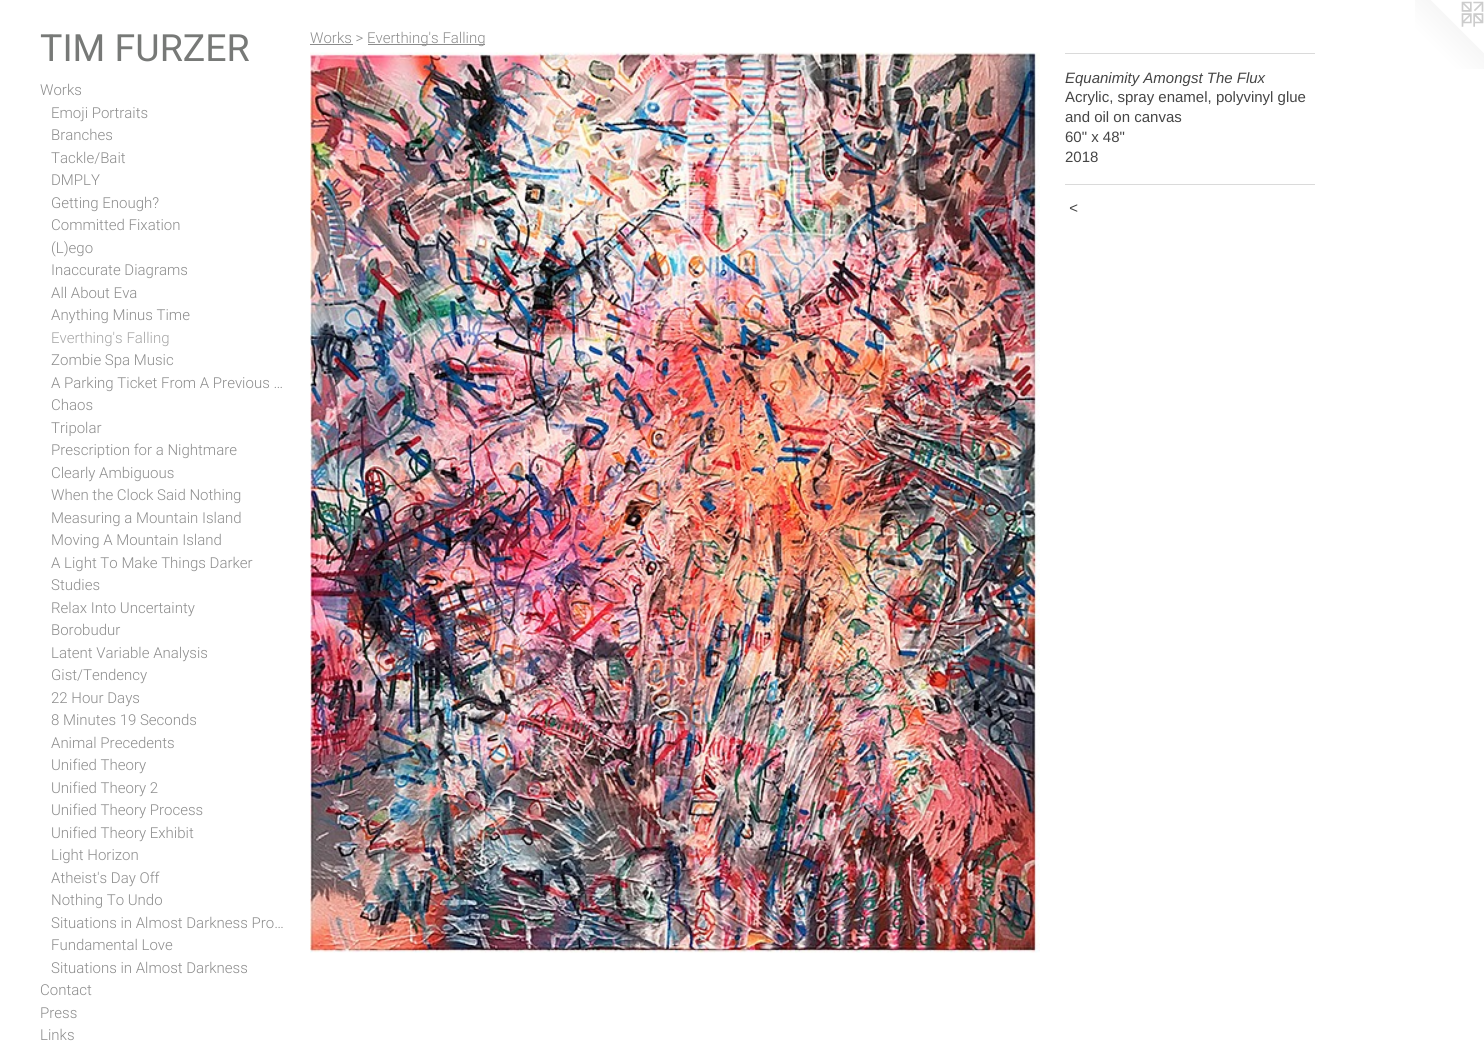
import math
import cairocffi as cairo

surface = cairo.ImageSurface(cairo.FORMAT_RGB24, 1484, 1058)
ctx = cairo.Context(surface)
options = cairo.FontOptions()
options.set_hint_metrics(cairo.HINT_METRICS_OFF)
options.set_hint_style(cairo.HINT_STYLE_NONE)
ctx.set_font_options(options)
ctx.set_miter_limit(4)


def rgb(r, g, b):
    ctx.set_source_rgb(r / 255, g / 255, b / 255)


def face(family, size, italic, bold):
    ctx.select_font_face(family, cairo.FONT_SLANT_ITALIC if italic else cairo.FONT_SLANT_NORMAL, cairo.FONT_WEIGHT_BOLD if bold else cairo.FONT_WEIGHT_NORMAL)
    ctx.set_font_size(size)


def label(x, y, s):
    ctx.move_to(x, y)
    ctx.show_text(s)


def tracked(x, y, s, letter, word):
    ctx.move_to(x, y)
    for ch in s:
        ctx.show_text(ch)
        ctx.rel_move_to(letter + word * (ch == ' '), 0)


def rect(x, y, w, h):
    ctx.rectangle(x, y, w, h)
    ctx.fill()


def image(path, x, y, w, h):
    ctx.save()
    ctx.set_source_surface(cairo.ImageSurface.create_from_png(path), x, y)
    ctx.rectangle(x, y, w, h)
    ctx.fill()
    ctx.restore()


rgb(255, 255, 255)
ctx.paint()
face('Roboto', 37.5, 0, 0)
rgb(119, 121, 119)
label(40, 61, 'TIM FURZER')
face('Roboto Light', 15, 0, 0)
rgb(140, 140, 140)
label(40, 95, 'Works')
label(51, 118, 'Emoji Portraits')
label(51, 140, 'Branches')
label(51, 163, 'Tackle/Bait')
label(51, 185, 'DMPLY')
label(51, 208, 'Getting Enough?')
label(51, 230, 'Committed Fixation')
label(51, 253, '(L)ego')
label(51, 275, 'Inaccurate Diagrams')
label(51, 298, 'All About Eva')
label(51, 320, 'Anything Minus Time')
rgb(166, 166, 166)
label(51, 343, 'Everthing\'s Falling')
rgb(140, 140, 140)
label(51, 365, 'Zombie Spa Music')
label(51, 388, 'A Parking Ticket From A Previous …')
label(51, 410, 'Chaos')
label(51, 433, 'Tripolar')
label(51, 455, 'Prescription for a Nightmare')
label(51, 478, 'Clearly Ambiguous')
label(51, 500, 'When the Clock Said Nothing')
label(51, 523, 'Measuring a Mountain Island')
label(51, 545, 'Moving A Mountain Island')
label(51, 568, 'A Light To Make Things Darker')
label(51, 590, 'Studies')
label(51, 613, 'Relax Into Uncertainty')
label(51, 635, 'Borobudur')
label(51, 658, 'Latent Variable Analysis')
label(51, 680, 'Gist/Tendency')
label(51, 703, '22 Hour Days')
label(51, 725, '8 Minutes 19 Seconds')
label(51, 748, 'Animal Precedents')
label(51, 770, 'Unified Theory')
label(51, 793, 'Unified Theory 2')
label(51, 815, 'Unified Theory Process')
label(51, 838, 'Unified Theory Exhibit')
label(51, 860, 'Light Horizon')
label(51, 883, 'Atheist\'s Day Off')
label(51, 905, 'Nothing To Undo')
label(51, 928, 'Situations in Almost Darkness Pro…')
label(51, 950, 'Fundamental Love')
label(51, 973, 'Situations in Almost Darkness')
label(40, 995, 'Contact')
label(40, 1018, 'Press')
label(40, 1040, 'Links')
label(310, 43, 'Works >')
rect(310, 44, 43, 1)
rect(368, 44, 117, 1)
label(367, 43, 'Everthing\'s Falling')
image('image0.png', 310, 52, 730, 901)
rgb(218, 218, 218)
rect(1065, 53, 250, 1)
face('Liberation Sans', 15, 1, 0)
rgb(69, 69, 69)
label(1065, 83, 'Equanimity Amongst The Flux')
face('Liberation Sans', 15, 0, 0)
label(1065, 102, 'Acrylic, spray enamel, polyvinyl glue')
label(1065, 122, 'and oil on canvas')
label(1065, 142, '60" x 48"')
label(1065, 162, '2018')
rgb(218, 218, 218)
rect(1065, 184, 250, 1)
face('Liberation Sans', 15, 1, 0)
rgb(69, 69, 69)
tracked(1069, 213, '<', 1, 0)
image('image1.png', 1415, 0, 69, 69)
surface.write_to_png('render.png')
